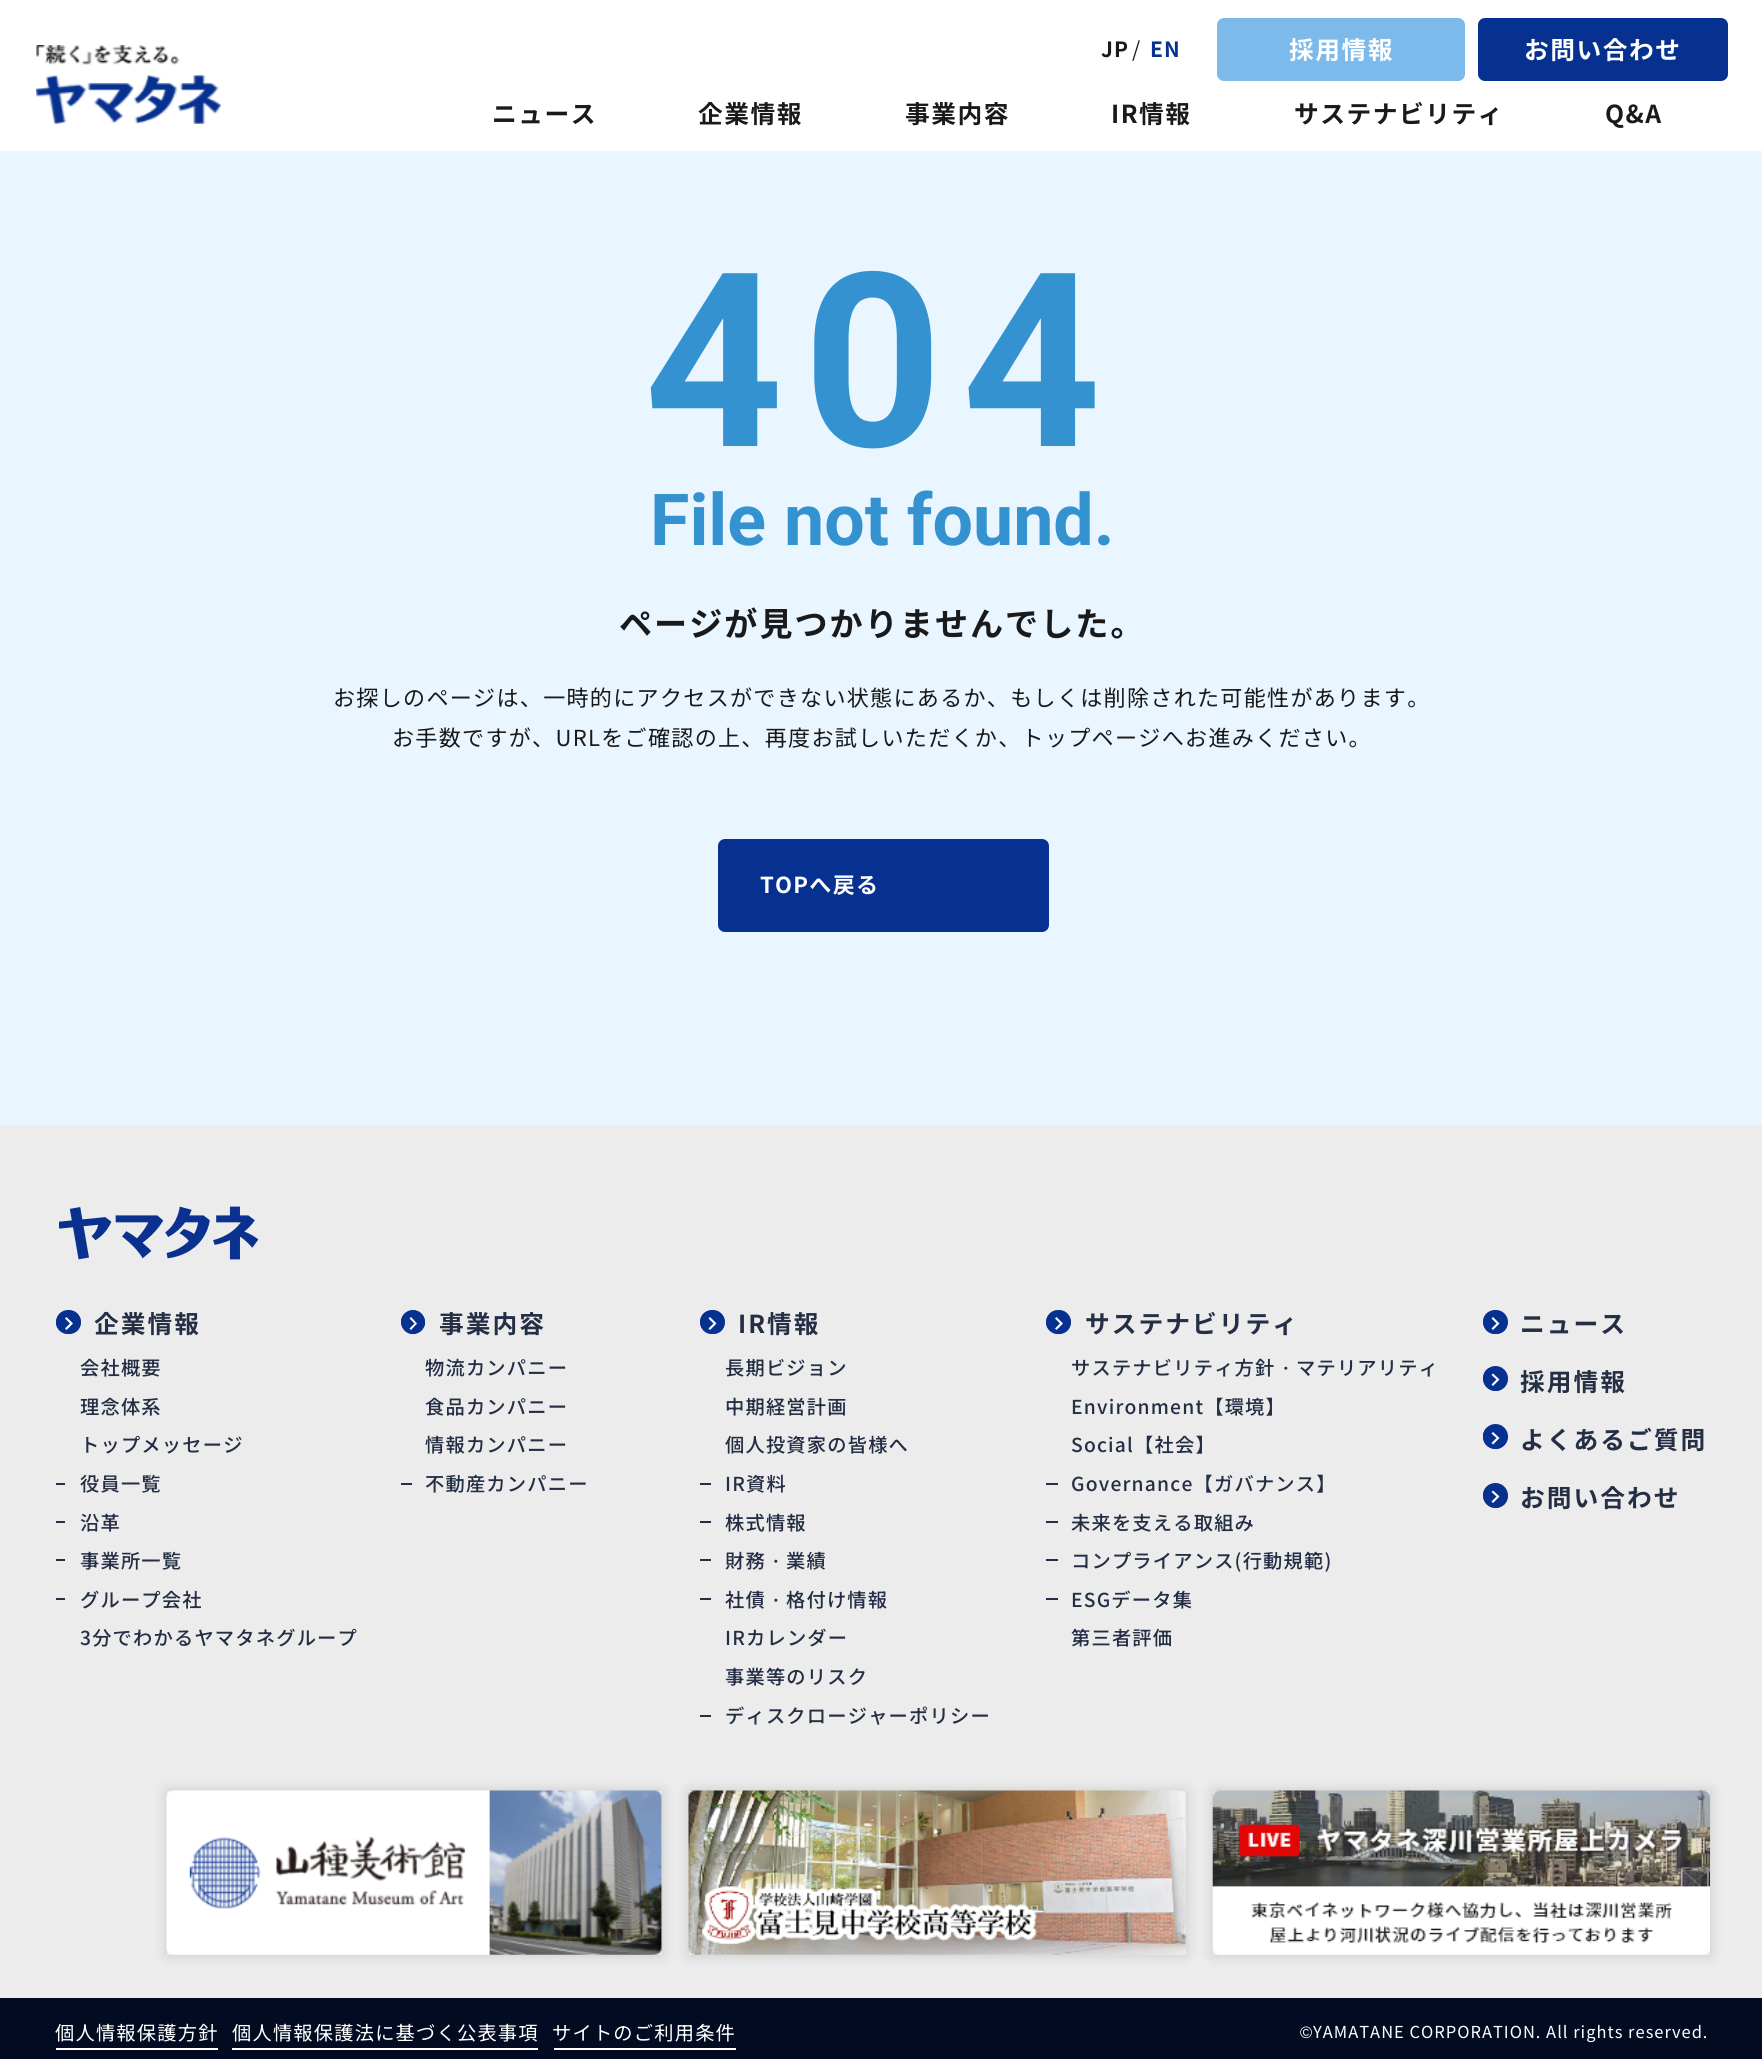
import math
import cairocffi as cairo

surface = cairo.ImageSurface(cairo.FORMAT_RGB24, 1762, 2059)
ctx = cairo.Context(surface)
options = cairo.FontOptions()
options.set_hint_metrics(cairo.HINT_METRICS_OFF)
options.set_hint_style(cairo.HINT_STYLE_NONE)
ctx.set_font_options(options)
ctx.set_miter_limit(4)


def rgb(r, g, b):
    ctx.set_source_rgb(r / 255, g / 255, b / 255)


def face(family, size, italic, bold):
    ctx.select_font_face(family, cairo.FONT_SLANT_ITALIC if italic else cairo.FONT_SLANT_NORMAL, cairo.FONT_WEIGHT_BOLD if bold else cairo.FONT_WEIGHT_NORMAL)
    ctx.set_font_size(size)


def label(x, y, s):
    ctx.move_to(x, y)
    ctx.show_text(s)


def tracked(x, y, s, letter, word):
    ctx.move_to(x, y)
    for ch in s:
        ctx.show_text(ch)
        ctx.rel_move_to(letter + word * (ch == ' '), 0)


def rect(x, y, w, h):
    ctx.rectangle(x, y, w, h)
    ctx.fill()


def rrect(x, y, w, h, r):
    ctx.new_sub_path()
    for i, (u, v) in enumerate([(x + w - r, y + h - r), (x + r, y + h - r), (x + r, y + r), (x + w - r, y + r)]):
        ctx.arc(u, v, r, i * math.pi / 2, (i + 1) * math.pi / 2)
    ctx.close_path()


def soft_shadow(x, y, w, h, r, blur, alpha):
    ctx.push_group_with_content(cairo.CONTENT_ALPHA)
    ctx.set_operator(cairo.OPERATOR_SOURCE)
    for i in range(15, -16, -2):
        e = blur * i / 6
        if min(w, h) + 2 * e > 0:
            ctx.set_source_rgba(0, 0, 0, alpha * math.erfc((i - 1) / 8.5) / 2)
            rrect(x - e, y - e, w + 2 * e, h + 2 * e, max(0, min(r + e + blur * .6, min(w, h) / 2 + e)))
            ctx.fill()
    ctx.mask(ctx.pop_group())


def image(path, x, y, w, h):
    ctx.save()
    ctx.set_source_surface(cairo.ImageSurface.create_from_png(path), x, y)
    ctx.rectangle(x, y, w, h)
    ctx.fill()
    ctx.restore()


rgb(233, 246, 255)
ctx.paint()
rgb(255, 255, 255)
rect(0, 0, 1762, 151)
image('image0.png', 36, 45, 185, 79)
face('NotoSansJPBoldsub', 21, 0, 1)
rgb(26, 26, 26)
tracked(1101, 57, 'JP', 1, 0)
face('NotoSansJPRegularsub', 21, 0, 0)
rgb(32, 32, 32)
label(1132, 57, '/')
face('NotoSansJPBoldsub', 21, 0, 1)
rgb(7, 49, 144)
tracked(1150, 57, 'EN', 1, 0)
rgb(123, 186, 235)
rrect(1217, 18, 248, 63, 7)
ctx.fill()
face('NotoSansJPBoldsub', 24.75, 0, 1)
rgb(255, 255, 255)
tracked(1289, 59, '採用情報', 1.5, 0)
rgb(7, 49, 144)
rrect(1478, 18, 250, 63, 7)
ctx.fill()
rgb(255, 255, 255)
tracked(1524, 59, 'お問い合わせ', 1.5, 0)
rgb(26, 26, 26)
tracked(492, 123, 'ニュース', 1.5, 0)
tracked(698, 123, '企業情報', 1.5, 0)
tracked(905, 123, '事業内容', 1.5, 0)
tracked(1111, 123, 'IR情報', 1.5, 0)
tracked(1294, 123, 'サステナビリティ', 1.5, 0)
tracked(1605, 123, 'Q&A', 1.5, 0)
face('Roboto', 243, 0, 1)
rgb(53, 146, 209)
tracked(644, 446, '404', 19.5, 0)
face('Roboto', 71.75, 0, 1)
label(650, 545, 'File not found.')
face('NotoSansJPBoldsub', 33.1, 0, 1)
rgb(26, 26, 26)
tracked(619, 636, 'ページが見つかりませんでした。', 2, 0)
face('NotoSansJPRegularsub', 22.05, 0, 0)
tracked(333, 706, 'お探しのページは、一時的にアクセスができない状態にあるか、もしくは削除された可能性があります。', 1.3, 0)
tracked(392, 746, 'お手数ですが、URLをご確認の上、再度お試しいただくか、トップページへお進みください。', 1.3, 0)
rgb(7, 49, 144)
rrect(719, 840, 329, 91, 6)
ctx.fill_preserve()
ctx.stroke()
face('NotoSansJPBoldsub', 22.05, 0, 1)
rgb(255, 255, 255)
tracked(760, 893, 'TOPへ戻る', 1.3, 0)
rgb(236, 236, 236)
rect(0, 1125, 1762, 873)
image('image1.png', 59, 1206, 200, 54)
rgb(7, 49, 144)
rrect(56, 1310, 25, 24, 12)
ctx.fill()
ctx.new_path()
ctx.move_to(68.5, 1310.5)
ctx.curve_to(84, 1310.5, 85.5, 1333, 69, 1334)
ctx.curve_to(62.5, 1334.5, 56, 1329.5, 56, 1322.5)
ctx.curve_to(56, 1316, 62, 1310.5, 68.5, 1310.5)
ctx.close_path()
ctx.fill()
rgb(255, 255, 255)
ctx.new_path()
ctx.move_to(66.5, 1330)
ctx.line_to(65, 1328.5)
ctx.line_to(70, 1323.5)
ctx.line_to(65, 1318.5)
ctx.line_to(66.5, 1317)
ctx.line_to(73, 1323.5)
ctx.close_path()
ctx.fill()
face('NotoSansJPBoldsub', 24.75, 0, 1)
rgb(36, 46, 68)
tracked(94, 1333, '企業情報', 2, 0)
face('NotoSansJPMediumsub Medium', 19.25, 0, 0)
tracked(80, 1375, '会社概要', 1.2, 0)
tracked(80, 1414, '理念体系', 1.2, 0)
tracked(80, 1452, 'トップメッセージ', 1.2, 0)
rect(56, 1483, 9, 2)
tracked(80, 1491, '役員一覧', 1.2, 0)
rect(56, 1521, 9, 2)
tracked(80, 1530, '沿革', 1.2, 0)
rect(56, 1559, 9, 2)
tracked(80, 1568, '事業所一覧', 1.2, 0)
rect(56, 1598, 9, 2)
tracked(80, 1607, 'グループ会社', 1.2, 0)
tracked(80, 1645, '3分でわかるヤマタネグループ', 1.2, 0)
rgb(7, 49, 144)
ctx.new_path()
ctx.arc(413, 1322, 12, 0, 2 * math.pi)
ctx.fill()
ctx.new_path()
ctx.move_to(413, 1310.5)
ctx.curve_to(420.5, 1310.5, 426, 1317, 425, 1324.5)
ctx.curve_to(424, 1328, 421.5, 1331.5, 417.5, 1333)
ctx.curve_to(405, 1338.5, 395, 1321, 405.5, 1313)
ctx.curve_to(407.5, 1311.5, 410.5, 1310.5, 413, 1310.5)
ctx.close_path()
ctx.fill()
rgb(255, 255, 255)
ctx.new_path()
ctx.move_to(411, 1330)
ctx.line_to(409.5, 1328.5)
ctx.line_to(414.5, 1323.5)
ctx.line_to(409.5, 1318.5)
ctx.line_to(411, 1317)
ctx.line_to(417, 1323.5)
ctx.close_path()
ctx.fill()
face('NotoSansJPBoldsub', 24.75, 0, 1)
rgb(36, 46, 68)
tracked(439, 1333, '事業内容', 2, 0)
face('NotoSansJPMediumsub Medium', 19.25, 0, 0)
tracked(425, 1375, '物流カンパニー', 1.2, 0)
tracked(425, 1414, '食品カンパニー', 1.2, 0)
tracked(425, 1452, '情報カンパニー', 1.2, 0)
rect(401, 1483, 11, 2)
tracked(425, 1491, '不動産カンパニー', 1.2, 0)
rgb(7, 49, 144)
rrect(700, 1310, 25, 24, 12)
ctx.fill()
ctx.new_path()
ctx.move_to(712, 1310.5)
ctx.curve_to(727.5, 1310.5, 729.5, 1333.5, 713, 1334)
ctx.curve_to(696.5, 1334.5, 695.5, 1310.5, 712, 1310.5)
ctx.close_path()
ctx.fill()
rgb(255, 255, 255)
ctx.new_path()
ctx.move_to(710, 1330)
ctx.line_to(708.5, 1328.5)
ctx.line_to(713.5, 1323.5)
ctx.line_to(708.5, 1318.5)
ctx.line_to(710, 1317)
ctx.line_to(716.5, 1323.5)
ctx.close_path()
ctx.fill()
face('NotoSansJPBoldsub', 24.75, 0, 1)
rgb(36, 46, 68)
tracked(738, 1333, 'IR情報', 2, 0)
face('NotoSansJPMediumsub Medium', 19.25, 0, 0)
tracked(725, 1375, '長期ビジョン', 1.2, 0)
tracked(725, 1414, '中期経営計画', 1.2, 0)
tracked(725, 1452, '個人投資家の皆様へ', 1.2, 0)
rect(700, 1483, 11, 2)
tracked(725, 1491, 'IR資料', 1.2, 0)
rect(700, 1521, 11, 2)
tracked(725, 1530, '株式情報', 1.2, 0)
rect(700, 1559, 11, 2)
tracked(725, 1568, '財務', 1.2, 0)
face('WenQuanYi Zen Hei Medium', 19.25, 0, 0)
tracked(766, 1568, '・', 1.2, 0)
face('NotoSansJPMediumsub Medium', 19.25, 0, 0)
tracked(786, 1568, '業績', 1.2, 0)
rect(700, 1598, 11, 2)
tracked(725, 1607, '社債', 1.2, 0)
face('WenQuanYi Zen Hei Medium', 19.25, 0, 0)
tracked(766, 1607, '・', 1.2, 0)
face('NotoSansJPMediumsub Medium', 19.25, 0, 0)
tracked(786, 1607, '格付け情報', 1.2, 0)
tracked(725, 1645, 'IRカレンダー', 1.2, 0)
tracked(725, 1684, '事業等のリスク', 1.2, 0)
rect(700, 1715, 11, 2)
tracked(725, 1723, 'ディスクロージャーポリシー', 1.2, 0)
rgb(7, 49, 144)
rrect(1046, 1310, 25, 24, 12)
ctx.fill()
ctx.new_path()
ctx.move_to(1058.5, 1310.5)
ctx.curve_to(1074, 1310.5, 1075.5, 1333, 1059, 1334)
ctx.curve_to(1052.5, 1334.5, 1046, 1329.5, 1046, 1322.5)
ctx.curve_to(1046, 1316, 1052, 1310.5, 1058.5, 1310.5)
ctx.close_path()
ctx.fill()
rgb(255, 255, 255)
ctx.new_path()
ctx.move_to(1056.5, 1330)
ctx.line_to(1055, 1328.5)
ctx.line_to(1060, 1323.5)
ctx.line_to(1055, 1318.5)
ctx.line_to(1056.5, 1317)
ctx.line_to(1063, 1323.5)
ctx.close_path()
ctx.fill()
face('NotoSansJPBoldsub', 24.75, 0, 1)
rgb(36, 46, 68)
tracked(1085, 1333, 'サステナビリティ', 2, 0)
face('NotoSansJPMediumsub Medium', 19.25, 0, 0)
tracked(1071, 1375, 'サステナビリティ方針', 1.2, 0)
face('WenQuanYi Zen Hei Medium', 19.25, 0, 0)
tracked(1276, 1375, '・', 1.2, 0)
face('NotoSansJPMediumsub Medium', 19.25, 0, 0)
tracked(1296, 1375, 'マテリアリティ', 1.2, 0)
tracked(1071, 1414, 'Environment【環境】', 1.2, 0)
tracked(1071, 1452, 'Social【社会】', 1.2, 0)
rect(1046, 1483, 12, 2)
tracked(1071, 1491, 'Governance【ガバナンス】', 1.2, 0)
rect(1046, 1521, 12, 2)
tracked(1071, 1530, '未来を支える取組み', 1.2, 0)
rect(1046, 1559, 12, 2)
tracked(1071, 1568, 'コンプライアンス(行動規範)', 1.2, 0)
rect(1046, 1598, 12, 2)
tracked(1071, 1607, 'ESGデータ集', 1.2, 0)
tracked(1071, 1645, '第三者評価', 1.2, 0)
rgb(7, 49, 144)
rrect(1483, 1310, 25, 24, 12)
ctx.fill()
ctx.new_path()
ctx.move_to(1495, 1310.5)
ctx.curve_to(1510.5, 1310.5, 1512.5, 1333.5, 1496, 1334)
ctx.curve_to(1479.5, 1334.5, 1478.5, 1310.5, 1495, 1310.5)
ctx.close_path()
ctx.fill()
rgb(255, 255, 255)
ctx.new_path()
ctx.move_to(1493, 1330)
ctx.line_to(1491.5, 1328.5)
ctx.line_to(1496.5, 1323.5)
ctx.line_to(1491.5, 1318.5)
ctx.line_to(1493, 1317)
ctx.line_to(1499.5, 1323.5)
ctx.close_path()
ctx.fill()
face('NotoSansJPBoldsub', 24.75, 0, 1)
rgb(36, 46, 68)
tracked(1520, 1333, 'ニュース', 2, 0)
rgb(7, 49, 144)
ctx.new_path()
ctx.arc(1495.5, 1378.5, 12.5, 0, 2 * math.pi)
ctx.fill()
ctx.save()
ctx.rectangle(1483, 1368, 25, 25)
ctx.clip()
ctx.new_path()
ctx.move_to(1495, 1366.5)
ctx.curve_to(1507.5, 1366.5, 1512.5, 1384, 1501.5, 1389.5)
ctx.curve_to(1499.5, 1390.5, 1497.5, 1391, 1495.5, 1391)
ctx.curve_to(1479, 1390, 1479, 1366.5, 1495, 1366.5)
ctx.close_path()
ctx.fill()
ctx.restore()
rgb(255, 255, 255)
ctx.new_path()
ctx.move_to(1493, 1386)
ctx.line_to(1491.5, 1384.5)
ctx.line_to(1496.5, 1379.5)
ctx.line_to(1491.5, 1375)
ctx.line_to(1493, 1373.5)
ctx.line_to(1499.5, 1379.5)
ctx.close_path()
ctx.fill()
rgb(36, 46, 68)
tracked(1520, 1391, '採用情報', 2, 0)
rgb(7, 49, 144)
ctx.new_path()
ctx.arc(1495.5, 1436.5, 12.5, 0, 2 * math.pi)
ctx.fill()
ctx.save()
ctx.rectangle(1483, 1427, 25, 24)
ctx.clip()
ctx.new_path()
ctx.move_to(1495, 1425)
ctx.curve_to(1507, 1425, 1512.5, 1441, 1502, 1447)
ctx.curve_to(1500, 1448.5, 1497.5, 1449, 1495.5, 1449)
ctx.curve_to(1479, 1448.5, 1478.5, 1425, 1495, 1425)
ctx.close_path()
ctx.fill()
ctx.restore()
rgb(255, 255, 255)
ctx.new_path()
ctx.move_to(1493, 1444.5)
ctx.line_to(1491.5, 1443)
ctx.line_to(1496.5, 1438)
ctx.line_to(1491.5, 1433.5)
ctx.line_to(1493, 1432)
ctx.line_to(1499.5, 1438)
ctx.close_path()
ctx.fill()
rgb(36, 46, 68)
tracked(1520, 1449, 'よくあるご質問', 2, 0)
rgb(7, 49, 144)
ctx.new_path()
ctx.arc(1495.5, 1495.5, 12.5, 0, 2 * math.pi)
ctx.fill()
ctx.new_path()
ctx.move_to(1495, 1483.5)
ctx.curve_to(1507.5, 1483.5, 1512.5, 1501, 1501.5, 1506.5)
ctx.curve_to(1499.5, 1507.5, 1497.5, 1508, 1495.5, 1508)
ctx.curve_to(1479, 1507, 1479, 1483.5, 1495, 1483.5)
ctx.close_path()
ctx.fill()
rgb(255, 255, 255)
ctx.new_path()
ctx.move_to(1493, 1503)
ctx.line_to(1491.5, 1501.5)
ctx.line_to(1496.5, 1496.5)
ctx.line_to(1491.5, 1492)
ctx.line_to(1493, 1490.5)
ctx.line_to(1499.5, 1496.5)
ctx.close_path()
ctx.fill()
rgb(36, 46, 68)
tracked(1520, 1507, 'お問い合わせ', 2, 0)
ctx.save()
ctx.set_fill_rule(cairo.FILL_RULE_EVEN_ODD)
ctx.new_path()
ctx.move_to(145, 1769)
ctx.line_to(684, 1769)
ctx.line_to(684, 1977)
ctx.line_to(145, 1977)
ctx.close_path()
ctx.move_to(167, 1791)
ctx.line_to(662, 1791)
ctx.line_to(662, 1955)
ctx.line_to(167, 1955)
ctx.close_path()
ctx.clip()
rgb(0, 0, 0)
soft_shadow(167, 1791, 495, 164, 0, 7, 0.15)
ctx.restore()
image('image2.png', 166, 1790, 496, 165)
ctx.save()
ctx.set_fill_rule(cairo.FILL_RULE_EVEN_ODD)
ctx.new_path()
ctx.move_to(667, 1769)
ctx.line_to(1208, 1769)
ctx.line_to(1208, 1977)
ctx.line_to(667, 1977)
ctx.close_path()
ctx.move_to(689, 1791)
ctx.line_to(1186, 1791)
ctx.line_to(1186, 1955)
ctx.line_to(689, 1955)
ctx.close_path()
ctx.clip()
rgb(0, 0, 0)
soft_shadow(689, 1791, 497, 164, 0, 7, 0.15)
ctx.restore()
image('image3.png', 688, 1790, 498, 165)
ctx.save()
ctx.set_fill_rule(cairo.FILL_RULE_EVEN_ODD)
ctx.new_path()
ctx.move_to(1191, 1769)
ctx.line_to(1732, 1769)
ctx.line_to(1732, 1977)
ctx.line_to(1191, 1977)
ctx.close_path()
ctx.move_to(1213, 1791)
ctx.line_to(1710, 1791)
ctx.line_to(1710, 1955)
ctx.line_to(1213, 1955)
ctx.close_path()
ctx.clip()
rgb(0, 0, 0)
soft_shadow(1213, 1791, 497, 164, 0, 7, 0.15)
ctx.restore()
image('image4.png', 1212, 1790, 498, 165)
rgb(2, 11, 33)
rect(0, 1998, 1762, 61)
face('NotoSansJPRegularsub', 19.25, 0, 0)
rgb(255, 255, 255)
tracked(55, 2040, '個人情報保護方針', 1.2, 0)
rect(56, 2048, 162, 2)
tracked(232, 2040, '個人情報保護法に基づく公表事項', 1.2, 0)
rect(232, 2048, 306, 2)
tracked(552, 2040, 'サイトのご利用条件', 1.2, 0)
rect(554, 2048, 182, 2)
face('Liberation Sans', 16.5, 0, 0)
tracked(1300, 2038, '©', 1, 0)
face('NotoSansJPRegularsub', 16.5, 0, 0)
tracked(1313, 2038, 'YAMATANE CORPORATION. All rights reserved.', 1, 0)
surface.write_to_png('render.png')
